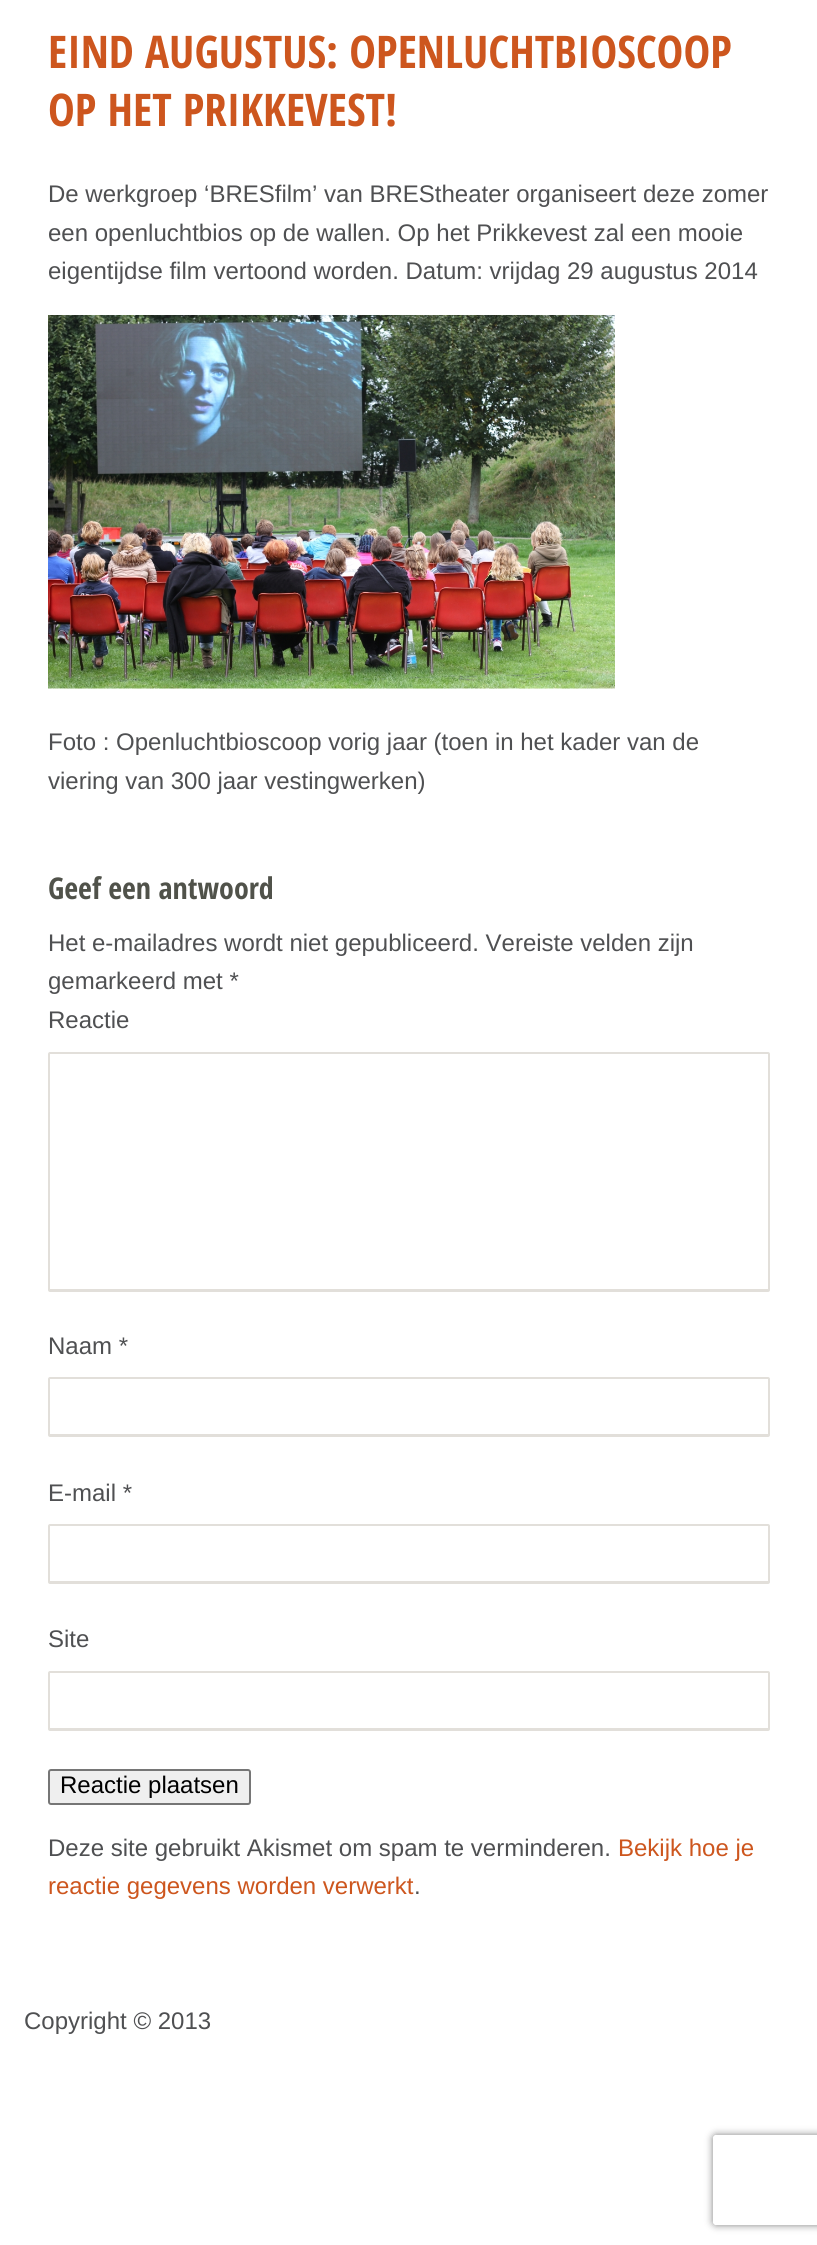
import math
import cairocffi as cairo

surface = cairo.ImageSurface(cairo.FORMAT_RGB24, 817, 2245)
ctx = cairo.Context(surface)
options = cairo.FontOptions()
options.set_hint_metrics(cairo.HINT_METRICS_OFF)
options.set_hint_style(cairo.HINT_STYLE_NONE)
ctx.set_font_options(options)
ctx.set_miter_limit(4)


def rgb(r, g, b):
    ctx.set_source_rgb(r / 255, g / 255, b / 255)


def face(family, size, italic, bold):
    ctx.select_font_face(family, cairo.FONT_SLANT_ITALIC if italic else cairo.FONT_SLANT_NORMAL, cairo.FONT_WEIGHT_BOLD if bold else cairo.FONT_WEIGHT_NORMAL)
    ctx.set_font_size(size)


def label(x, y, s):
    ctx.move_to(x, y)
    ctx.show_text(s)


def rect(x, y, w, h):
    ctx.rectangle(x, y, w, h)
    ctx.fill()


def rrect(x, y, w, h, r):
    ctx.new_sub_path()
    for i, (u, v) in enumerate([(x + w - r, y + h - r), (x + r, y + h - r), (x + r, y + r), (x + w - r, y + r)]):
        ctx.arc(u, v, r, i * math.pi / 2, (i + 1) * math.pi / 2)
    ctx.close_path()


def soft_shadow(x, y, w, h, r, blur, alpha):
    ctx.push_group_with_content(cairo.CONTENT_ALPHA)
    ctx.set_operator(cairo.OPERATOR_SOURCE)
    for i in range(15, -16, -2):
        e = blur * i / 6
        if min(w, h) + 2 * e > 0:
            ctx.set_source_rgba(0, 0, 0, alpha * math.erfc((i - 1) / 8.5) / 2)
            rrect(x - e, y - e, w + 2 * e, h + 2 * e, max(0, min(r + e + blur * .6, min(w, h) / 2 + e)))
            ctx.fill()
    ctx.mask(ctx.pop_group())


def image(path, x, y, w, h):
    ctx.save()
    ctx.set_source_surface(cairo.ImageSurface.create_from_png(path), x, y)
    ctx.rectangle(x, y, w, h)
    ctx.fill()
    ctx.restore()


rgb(255, 255, 255)
ctx.paint()
face('Open Sans Condensed', 45, 0, 1)
rgb(205, 86, 30)
label(48, 68, 'EIND AUGUSTUS: OPENLUCHTBIOSCOOP')
label(48, 126, 'OP HET PRIKKEVEST!')
face('Liberation Sans', 24, 0, 0)
rgb(79, 80, 82)
label(48, 202, 'De werkgroep ‘BRESfilm’ van BREStheater organiseert deze zomer')
label(48, 241, 'een openluchtbios op de wallen. Op het Prikkevest zal een mooie')
label(48, 279, 'eigentijdse film vertoond worden. Datum: vrijdag 29 augustus 2014')
image('image0.png', 48, 315, 567, 374)
label(48, 750, 'Foto : Openluchtbioscoop vorig jaar (toen in het kader van de')
label(48, 789, 'viering van 300 jaar vestingwerken)')
face('Open Sans Condensed', 30, 0, 1)
rgb(80, 82, 74)
label(48, 899, 'Geef een antwoord')
face('Liberation Sans', 24, 0, 0)
rgb(79, 80, 82)
label(48, 951, 'Het e-mailadres wordt niet gepubliceerd. Vereiste velden zijn')
label(48, 989, 'gemarkeerd met *')
label(48, 1028, 'Reactie')
rrect(49, 1053, 720, 238, 1)
rgb(226, 223, 218)
ctx.stroke()
rect(50, 1289, 718, 1)
rgb(79, 80, 82)
label(48, 1354, 'Naam *')
rrect(49, 1378, 720, 58, 1)
rgb(226, 223, 218)
ctx.stroke()
rect(50, 1434, 718, 1)
rgb(79, 80, 82)
label(48, 1501, 'E-mail *')
rrect(49, 1525, 720, 58, 1)
rgb(226, 223, 218)
ctx.stroke()
rect(50, 1581, 718, 1)
rgb(79, 80, 82)
label(48, 1647, 'Site')
rrect(49, 1672, 720, 58, 1)
rgb(226, 223, 218)
ctx.stroke()
rect(50, 1728, 718, 1)
rgb(239, 239, 239)
rrect(49, 1770, 201, 34, 2)
ctx.fill_preserve()
rgb(118, 118, 118)
ctx.stroke()
rgb(0, 0, 0)
label(60, 1793, 'Reactie plaatsen')
rgb(79, 80, 82)
label(48, 1856, 'Deze site gebruikt Akismet om spam te verminderen.')
rgb(205, 86, 30)
label(618, 1856, 'Bekijk hoe je')
label(48, 1894, 'reactie gegevens worden verwerkt')
rgb(79, 80, 82)
label(414, 1894, '.')
label(24, 2029, 'Copyright © 2013')
ctx.save()
ctx.set_fill_rule(cairo.FILL_RULE_EVEN_ODD)
ctx.new_path()
ctx.move_to(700, 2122)
ctx.line_to(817, 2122)
ctx.line_to(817, 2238)
ctx.line_to(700, 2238)
ctx.close_path()
ctx.move_to(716, 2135)
ctx.line_to(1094, 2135)
ctx.curve_to(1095.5, 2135, 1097, 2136.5, 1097, 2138)
ctx.line_to(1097, 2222)
ctx.curve_to(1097, 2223.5, 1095.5, 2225, 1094, 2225)
ctx.line_to(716, 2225)
ctx.curve_to(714.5, 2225, 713, 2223.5, 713, 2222)
ctx.line_to(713, 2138)
ctx.curve_to(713, 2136.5, 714.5, 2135, 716, 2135)
ctx.close_path()
ctx.clip()
rgb(128, 128, 128)
soft_shadow(713, 2135, 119, 90, 3, 4, 1)
ctx.restore()
surface.write_to_png('render.png')
